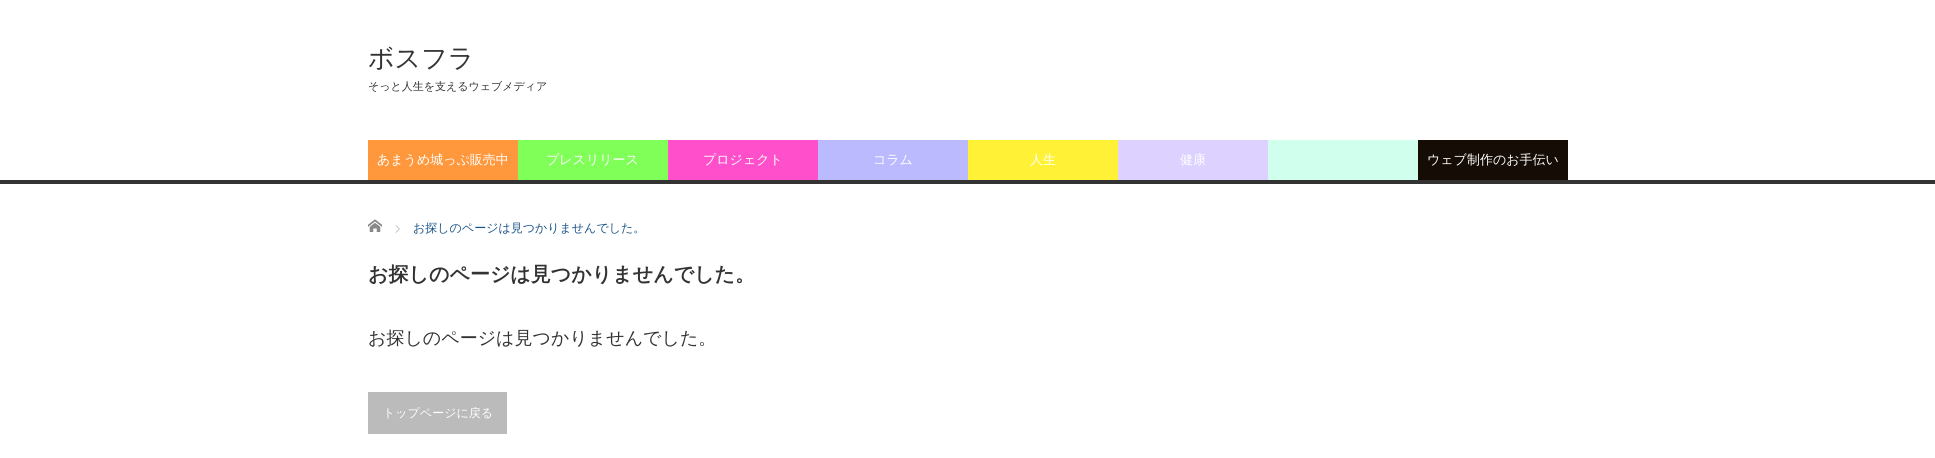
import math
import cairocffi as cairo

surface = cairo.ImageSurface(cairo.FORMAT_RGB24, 1935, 458)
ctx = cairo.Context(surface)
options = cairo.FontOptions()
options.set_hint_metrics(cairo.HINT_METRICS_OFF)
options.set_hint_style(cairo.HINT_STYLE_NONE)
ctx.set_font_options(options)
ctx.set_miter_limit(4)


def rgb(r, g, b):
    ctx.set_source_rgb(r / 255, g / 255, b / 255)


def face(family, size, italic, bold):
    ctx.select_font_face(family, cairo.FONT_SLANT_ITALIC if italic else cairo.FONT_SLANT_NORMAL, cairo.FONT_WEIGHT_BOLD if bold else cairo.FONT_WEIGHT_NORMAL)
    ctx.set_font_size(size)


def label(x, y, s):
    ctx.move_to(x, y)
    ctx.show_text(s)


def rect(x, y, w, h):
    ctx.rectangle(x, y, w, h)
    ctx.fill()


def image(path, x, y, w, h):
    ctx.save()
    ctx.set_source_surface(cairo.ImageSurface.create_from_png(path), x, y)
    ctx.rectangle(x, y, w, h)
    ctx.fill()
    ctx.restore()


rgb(255, 255, 255)
ctx.paint()
rgb(51, 51, 51)
rect(0, 180, 1935, 4)
face('WenQuanYi Zen Hei Medium', 26, 0, 0)
label(368, 67, 'ボスフラ')
face('WenQuanYi Zen Hei Medium', 11, 0, 0)
label(368, 90, 'そっと人生を支えるウェブメディア')
rgb(255, 152, 61)
rect(368, 140, 150, 40)
face('WenQuanYi Zen Hei Medium', 13, 0, 0)
rgb(255, 255, 255)
label(377, 164, 'あまうめ城っぷ販売中')
rgb(128, 255, 89)
rect(518, 140, 150, 40)
rgb(255, 255, 255)
label(546, 164, 'プレスリリース')
rgb(255, 79, 202)
rect(668, 140, 150, 40)
rgb(255, 255, 255)
label(703, 164, 'プロジェクト')
rgb(188, 186, 255)
rect(818, 140, 150, 40)
rgb(255, 255, 255)
label(873, 164, 'コラム')
rgb(255, 242, 54)
rect(968, 140, 150, 40)
rgb(255, 255, 255)
label(1030, 164, '人生')
rgb(220, 209, 255)
rect(1118, 140, 150, 40)
rgb(255, 255, 255)
label(1180, 164, '健康')
rgb(209, 255, 237)
rect(1268, 140, 150, 40)
rgb(20, 12, 5)
rect(1418, 140, 150, 40)
rgb(255, 255, 255)
label(1427, 164, 'ウェブ制作のお手伝い')
image('image0.png', 368, 219, 14, 13)
image('image1.png', 395, 225, 5, 8)
face('WenQuanYi Zen Hei Medium', 12, 0, 0)
rgb(26, 84, 135)
label(413, 232, 'お探しのページは見つかりませんでした。')
face('WenQuanYi Zen Hei', 20, 0, 1)
rgb(51, 51, 51)
label(368, 281, 'お探しのページは見つかりませんでした。')
face('WenQuanYi Zen Hei Medium', 18, 0, 0)
label(368, 344, 'お探しのページは見つかりませんでした。')
rgb(187, 187, 187)
rect(368, 392, 139, 42)
face('WenQuanYi Zen Hei Medium', 12, 0, 0)
rgb(255, 255, 255)
label(383, 417, 'トップページに戻る')
surface.write_to_png('render.png')
